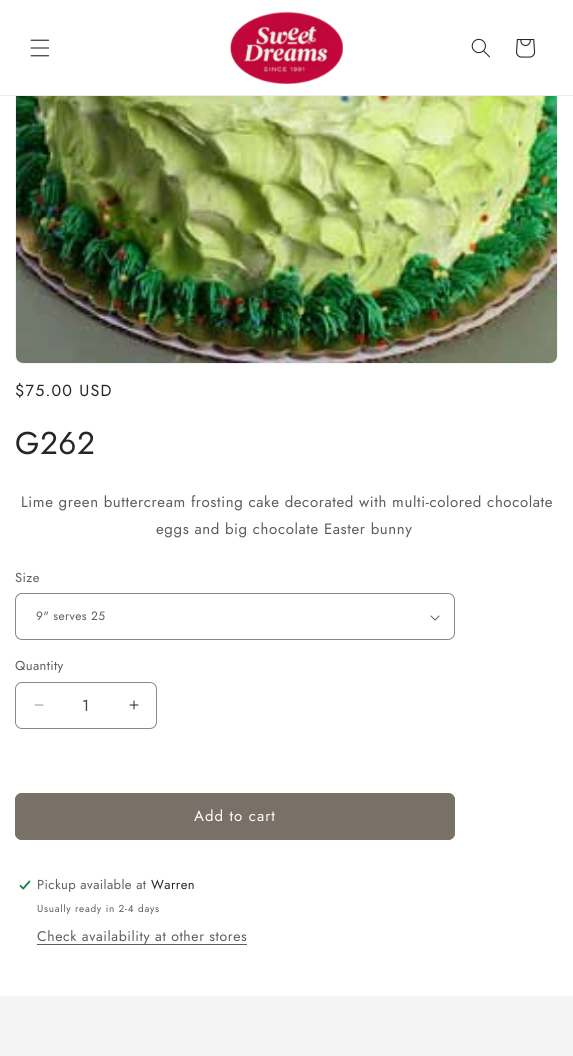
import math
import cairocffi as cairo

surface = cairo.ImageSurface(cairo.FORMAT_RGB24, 573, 1056)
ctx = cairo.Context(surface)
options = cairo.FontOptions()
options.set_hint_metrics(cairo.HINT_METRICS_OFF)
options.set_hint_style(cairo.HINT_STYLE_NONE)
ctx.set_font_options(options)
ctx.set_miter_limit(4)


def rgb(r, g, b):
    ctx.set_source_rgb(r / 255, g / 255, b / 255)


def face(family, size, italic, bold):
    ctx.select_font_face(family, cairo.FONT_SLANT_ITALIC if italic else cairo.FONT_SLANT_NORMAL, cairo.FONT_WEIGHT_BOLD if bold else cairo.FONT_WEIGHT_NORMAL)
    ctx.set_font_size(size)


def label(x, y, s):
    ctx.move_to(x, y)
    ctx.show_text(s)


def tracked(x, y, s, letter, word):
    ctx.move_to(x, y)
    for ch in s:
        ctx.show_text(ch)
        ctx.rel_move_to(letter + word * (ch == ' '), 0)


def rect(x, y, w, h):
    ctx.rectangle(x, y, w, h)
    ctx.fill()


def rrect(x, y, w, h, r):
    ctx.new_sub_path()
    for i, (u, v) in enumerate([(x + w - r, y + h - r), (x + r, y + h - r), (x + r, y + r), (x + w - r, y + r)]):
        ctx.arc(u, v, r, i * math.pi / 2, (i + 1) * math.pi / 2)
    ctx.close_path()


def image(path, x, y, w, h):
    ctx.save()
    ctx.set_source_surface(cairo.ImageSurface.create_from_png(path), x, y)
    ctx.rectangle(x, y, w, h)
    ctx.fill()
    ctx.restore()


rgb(244, 244, 244)
ctx.paint()
rgb(255, 255, 255)
rect(0, 96, 573, 900)
rrect(15.5, -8.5, 542, 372, 7.5)
rgb(244, 244, 244)
ctx.set_line_width(1)
ctx.stroke()
rgb(255, 255, 255)
rect(0, 0, 573, 95)
rgb(238, 238, 238)
rect(0, 95, 573, 1)
image('image0.png', 30, 39, 20, 18)
image('image1.png', 230, 11, 113, 73)
image('image2.png', 471, 38, 19, 20)
image('image3.png', 516, 39, 20, 19)
image('image4.png', 16, 96, 541, 267)
face('Jost', 16, 0, 0)
rgb(38, 38, 38)
tracked(15, 396, '$75.00 USD', 1.25, 0)
face('Jost', 31.5, 0, 0)
tracked(15, 454, 'G262', 0.5, 0)
face('Jost', 15, 0, 0)
rgb(92, 92, 92)
tracked(21, 507, 'Lime green buttercream frosting cake decorated with multi-colored chocolate', 0.6, 0)
tracked(156, 534, 'eggs and big chocolate Easter bunny', 0.6, 0)
face('Jost', 13, 0, 0)
tracked(15, 582, 'Size', 0.4, 0)
image('image5.png', 430, 615, 10, 6)
rrect(15.5, 593.5, 439, 46, 6.5)
rgb(136, 136, 136)
ctx.stroke()
face('Jost', 12, 0, 0)
rgb(92, 92, 92)
tracked(36, 620, '9" serves 25', 0.4, 0)
face('Jost', 13, 0, 0)
tracked(15, 670, 'Quantity', 0.4, 0)
image('image6.png', 34, 704, 10, 2)
image('image7.png', 129, 700, 10, 10)
rrect(15.5, 682.5, 141, 46, 6.5)
rgb(136, 136, 136)
ctx.stroke()
face('Jost', 16, 0, 0)
rgb(71, 71, 71)
label(82, 711, '1')
rgb(121, 112, 104)
rrect(15, 793, 440, 47, 7)
ctx.fill()
rrect(15.5, 793.5, 439, 46, 6.5)
ctx.stroke()
face('Jost', 15, 0, 0)
rgb(255, 255, 255)
tracked(194, 821, 'Add to cart', 1, 0)
image('image8.png', 19, 880, 12, 10)
face('Jost', 13, 0, 0)
rgb(92, 92, 92)
tracked(37, 889, 'Pickup available at', 0.4, 0)
rgb(38, 38, 38)
tracked(151, 889, 'Warren', 0.4, 0)
face('Jost', 10, 0, 0)
rgb(92, 92, 92)
tracked(37, 912, 'Usually ready in 2-4 days', 0.7, 0)
rect(37, 944, 210, 1)
face('Jost', 14, 0, 0)
tracked(37, 941, 'Check availability at other stores', 0.6, 0)
surface.write_to_png('render.png')
